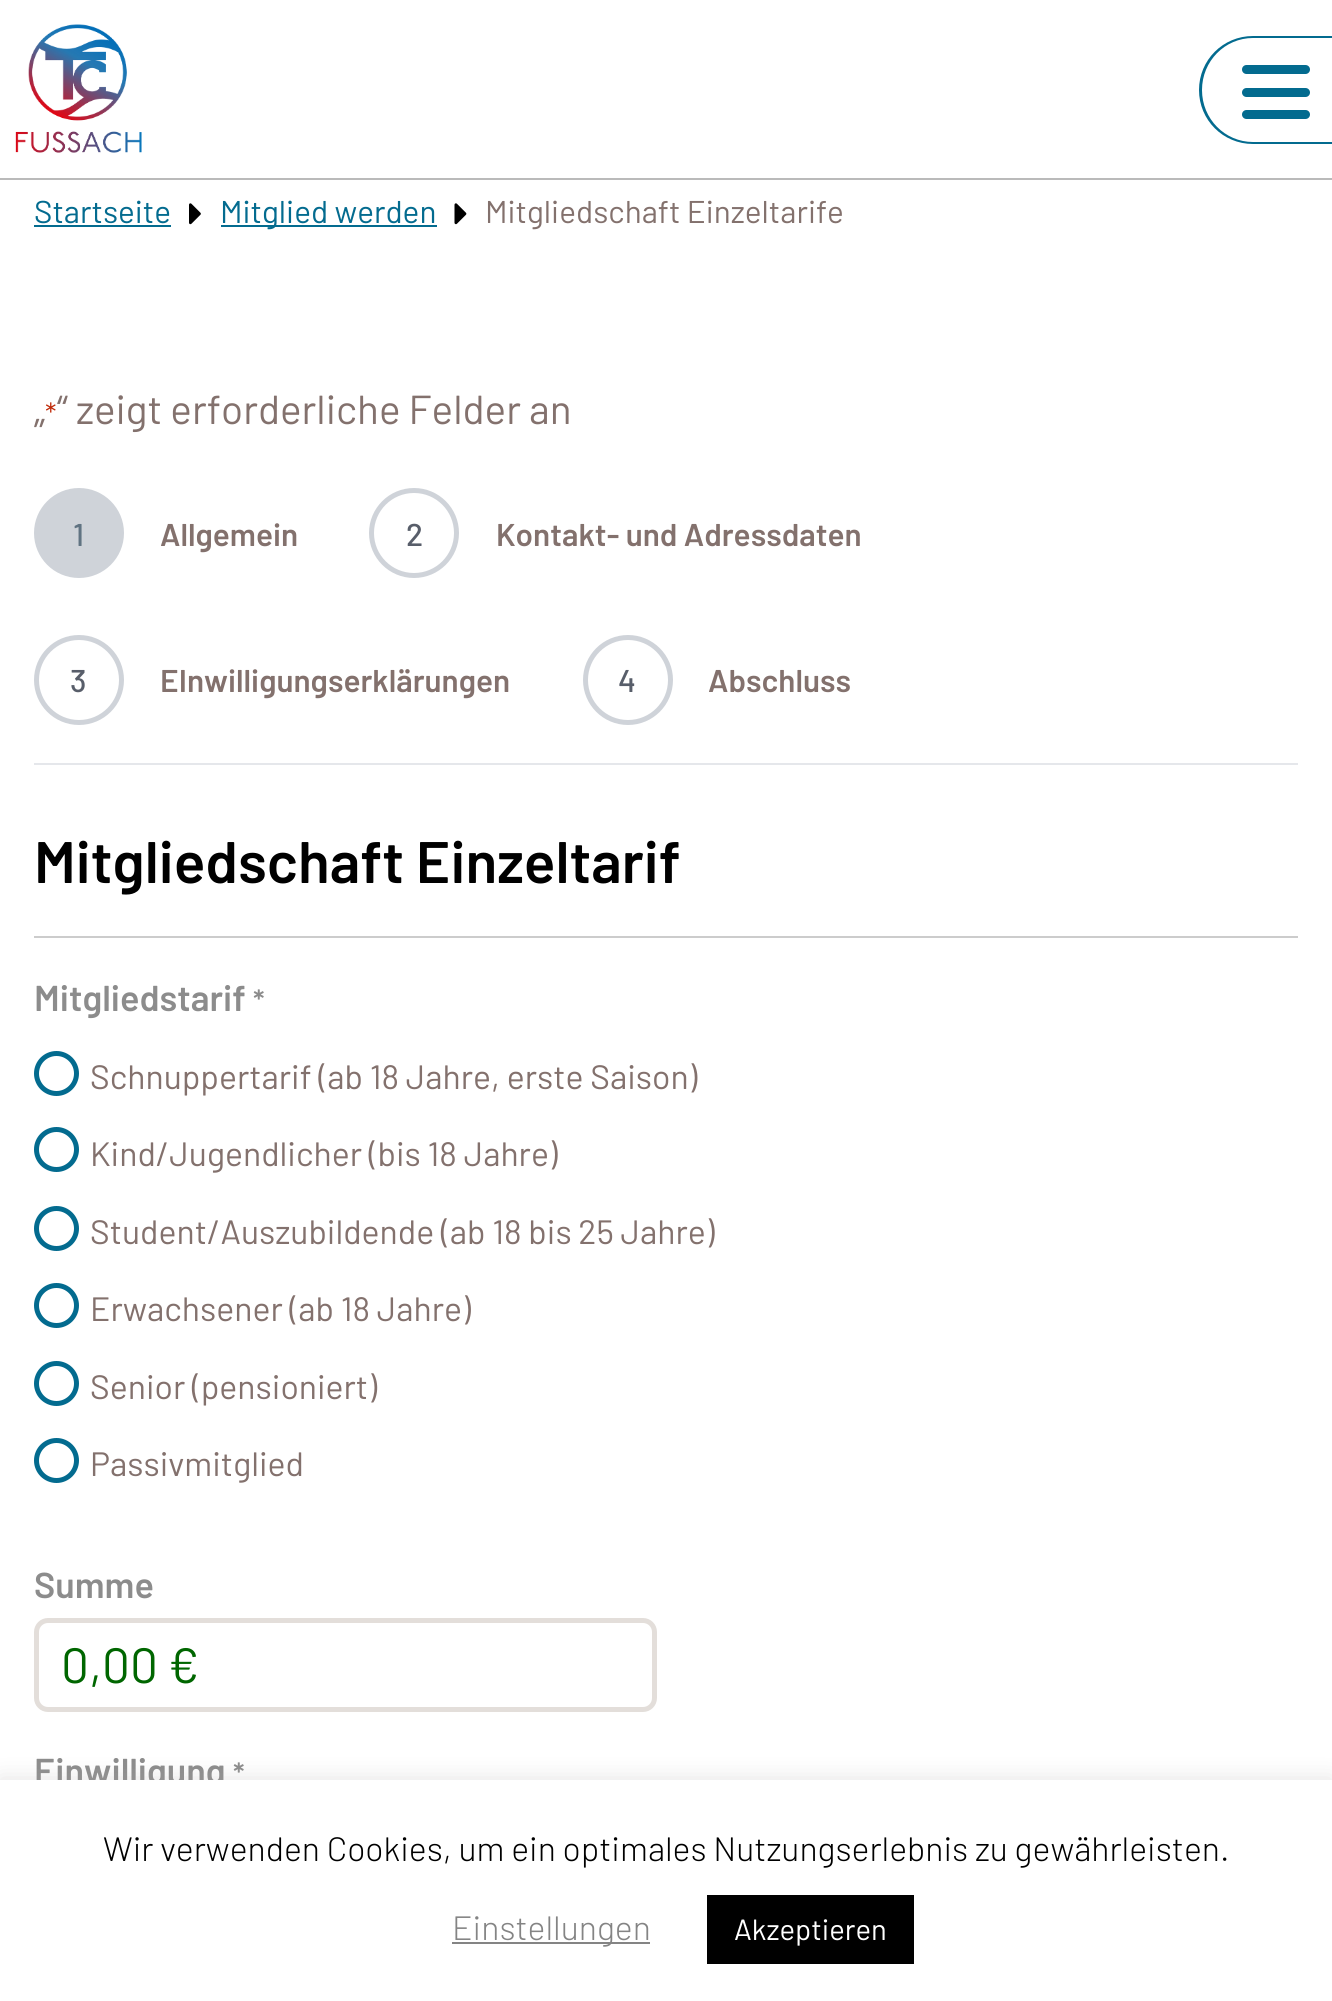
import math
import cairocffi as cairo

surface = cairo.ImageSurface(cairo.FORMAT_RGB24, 1332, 2001)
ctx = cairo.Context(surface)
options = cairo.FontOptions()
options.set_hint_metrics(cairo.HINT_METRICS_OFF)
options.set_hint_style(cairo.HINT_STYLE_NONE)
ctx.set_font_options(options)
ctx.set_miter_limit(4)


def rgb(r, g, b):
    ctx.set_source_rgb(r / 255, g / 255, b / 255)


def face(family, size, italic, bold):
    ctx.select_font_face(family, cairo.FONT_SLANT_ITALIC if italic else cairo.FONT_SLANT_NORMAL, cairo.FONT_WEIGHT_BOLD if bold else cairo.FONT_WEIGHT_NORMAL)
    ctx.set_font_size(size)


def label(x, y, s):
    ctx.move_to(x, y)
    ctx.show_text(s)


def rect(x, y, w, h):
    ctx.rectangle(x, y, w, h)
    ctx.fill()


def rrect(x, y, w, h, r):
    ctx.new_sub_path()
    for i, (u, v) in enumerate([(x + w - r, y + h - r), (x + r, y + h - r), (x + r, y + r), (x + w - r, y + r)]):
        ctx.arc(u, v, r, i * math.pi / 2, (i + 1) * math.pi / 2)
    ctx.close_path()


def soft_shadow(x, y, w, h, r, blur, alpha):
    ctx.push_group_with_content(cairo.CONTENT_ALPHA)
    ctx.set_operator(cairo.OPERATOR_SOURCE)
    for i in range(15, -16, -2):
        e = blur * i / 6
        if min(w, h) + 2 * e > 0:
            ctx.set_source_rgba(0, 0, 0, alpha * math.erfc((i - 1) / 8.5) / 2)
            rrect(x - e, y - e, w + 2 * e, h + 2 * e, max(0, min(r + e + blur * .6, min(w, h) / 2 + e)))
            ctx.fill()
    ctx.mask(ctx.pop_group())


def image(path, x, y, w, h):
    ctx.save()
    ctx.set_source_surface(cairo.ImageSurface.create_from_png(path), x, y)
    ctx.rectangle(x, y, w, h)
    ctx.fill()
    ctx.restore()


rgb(255, 255, 255)
ctx.paint()
rgb(186, 186, 186)
rect(0, 178, 1332, 2)
image('image0.png', 15, 24, 127, 129)
rgb(3, 107, 143)
ctx.set_fill_rule(cairo.FILL_RULE_EVEN_ODD)
ctx.new_path()
ctx.move_to(1253, 36)
ctx.line_to(1332, 36)
ctx.line_to(1332, 144)
ctx.line_to(1253, 144)
ctx.curve_to(1223, 144, 1199, 120, 1199, 90)
ctx.curve_to(1199, 60, 1223, 36, 1253, 36)
ctx.close_path()
ctx.move_to(1253, 38)
ctx.line_to(1332, 38)
ctx.line_to(1332, 142)
ctx.line_to(1253, 142)
ctx.curve_to(1225, 142, 1202, 119, 1202, 90)
ctx.curve_to(1202, 61, 1225, 38, 1253, 38)
ctx.close_path()
ctx.fill()
rrect(1242, 88, 68, 9, 4.5)
ctx.fill()
rrect(1242, 65, 68, 9, 4.5)
ctx.fill()
rrect(1242, 110, 68, 9, 4.5)
ctx.fill()
face('Barlow', 31.5, 0, 0)
label(34, 223, 'Startseite')
rect(34, 225, 137, 2)
image('image1.png', 189, 203, 12, 22)
rect(221, 225, 216, 2)
label(220, 223, 'Mitglied werden')
image('image2.png', 454, 203, 13, 22)
rgb(131, 113, 109)
label(485, 223, 'Mitgliedschaft Einzeltarife')
face('Barlow', 29, 0, 0)
rgb(192, 43, 10)
label(45, 424, '*')
face('Barlow', 40.5, 0, 0)
rgb(131, 113, 109)
label(57, 424, '“ zeigt erforderliche Felder an')
label(34, 424, '„')
rgb(229, 231, 235)
rect(34, 763, 1264, 2)
rgb(207, 211, 217)
ctx.new_path()
ctx.arc(79, 533, 42.5, 0, 2 * math.pi)
ctx.fill_preserve()
ctx.set_line_width(5)
ctx.stroke()
face('Barlow Medium', 31.5, 0, 0)
rgb(96, 115, 130)
label(73, 546, '1')
face('Barlow SemiBold', 31.5, 0, 0)
rgb(131, 113, 109)
label(160, 546, 'Allgemein')
ctx.new_path()
ctx.arc(414, 533, 42.5, 0, 2 * math.pi)
rgb(207, 211, 217)
ctx.stroke()
face('Barlow Medium', 31.5, 0, 0)
rgb(88, 94, 106)
label(406, 546, '2')
face('Barlow SemiBold', 31.5, 0, 0)
rgb(131, 113, 109)
label(496, 546, 'Kontakt- und Adressdaten')
ctx.new_path()
ctx.arc(79, 680, 42.5, 0, 2 * math.pi)
rgb(207, 211, 217)
ctx.stroke()
face('Barlow Medium', 31.5, 0, 0)
rgb(88, 94, 106)
label(70, 692, '3')
face('Barlow SemiBold', 31.5, 0, 0)
rgb(131, 113, 109)
label(160, 692, 'EInwilligungserklärungen')
ctx.new_path()
ctx.arc(628, 680, 42.5, 0, 2 * math.pi)
rgb(207, 211, 217)
ctx.stroke()
face('Barlow Medium', 31.5, 0, 0)
rgb(88, 94, 106)
label(618, 692, '4')
face('Barlow SemiBold', 31.5, 0, 0)
rgb(131, 113, 109)
label(708, 692, 'Abschluss')
rgb(204, 204, 204)
rect(34, 936, 1264, 2)
face('Barlow SemiBold', 58.5, 0, 0)
rgb(0, 0, 0)
label(34, 883, 'Mitgliedschaft Einzeltarif')
face('Barlow SemiBold', 36, 0, 0)
rgb(140, 140, 140)
label(34, 1011, 'Mitgliedstarif')
face('Barlow SemiBold', 29, 0, 0)
label(253, 1011, '*')
ctx.new_path()
ctx.arc(56.5, 1073.5, 20, 0, 2 * math.pi)
rgb(3, 107, 143)
ctx.stroke()
face('Barlow', 33.75, 0, 0)
rgb(131, 113, 109)
label(90, 1089, 'Schnuppertarif (ab 18 Jahre, erste Saison)')
ctx.new_path()
ctx.arc(56.5, 1149.5, 20, 0, 2 * math.pi)
rgb(3, 107, 143)
ctx.stroke()
rgb(131, 113, 109)
label(90, 1166, 'Kind/Jugendlicher (bis 18 Jahre)')
ctx.new_path()
ctx.arc(56.5, 1228.5, 20, 0, 2 * math.pi)
rgb(3, 107, 143)
ctx.stroke()
rgb(131, 113, 109)
label(90, 1244, 'Student/Auszubildende (ab 18 bis 25 Jahre)')
ctx.new_path()
ctx.arc(56.5, 1305.5, 20, 0, 2 * math.pi)
rgb(3, 107, 143)
ctx.stroke()
rgb(131, 113, 109)
label(90, 1321, 'Erwachsener (ab 18 Jahre)')
ctx.new_path()
ctx.arc(56.5, 1383.5, 20, 0, 2 * math.pi)
rgb(3, 107, 143)
ctx.stroke()
rgb(131, 113, 109)
label(90, 1399, 'Senior (pensioniert)')
ctx.new_path()
ctx.arc(56.5, 1460.5, 20, 0, 2 * math.pi)
rgb(3, 107, 143)
ctx.stroke()
rgb(131, 113, 109)
label(90, 1476, 'Passivmitglied')
face('Barlow SemiBold', 36, 0, 0)
rgb(140, 140, 140)
label(34, 1598, 'Summe')
rrect(36.5, 1620.5, 618, 89, 11.5)
rgb(227, 222, 218)
ctx.stroke()
face('Barlow', 49.5, 0, 0)
rgb(0, 102, 0)
label(61, 1683, '0,00 €')
face('Barlow SemiBold', 36, 0, 0)
rgb(140, 140, 140)
label(34, 1784, 'Einwilligung')
face('Barlow SemiBold', 29, 0, 0)
label(233, 1784, '*')
rgb(172, 171, 171)
soft_shadow(0, 1778, 1332, 222, 0, 11, 0.3)
rgb(255, 255, 255)
rect(0, 1780, 1332, 221)
face('Barlow Light', 33.75, 0, 0)
rgb(0, 0, 0)
label(103, 1861, 'Wir verwenden Cookies, um ein optimales Nutzungserlebnis zu gewährleisten.')
rgb(132, 132, 132)
rect(452, 1942, 198, 2)
label(452, 1940, 'Einstellungen')
rgb(0, 0, 0)
rect(707, 1895, 207, 69)
face('Barlow', 29.25, 0, 0)
rgb(255, 255, 255)
label(734, 1940, 'Akzeptieren')
surface.write_to_png('render.png')
